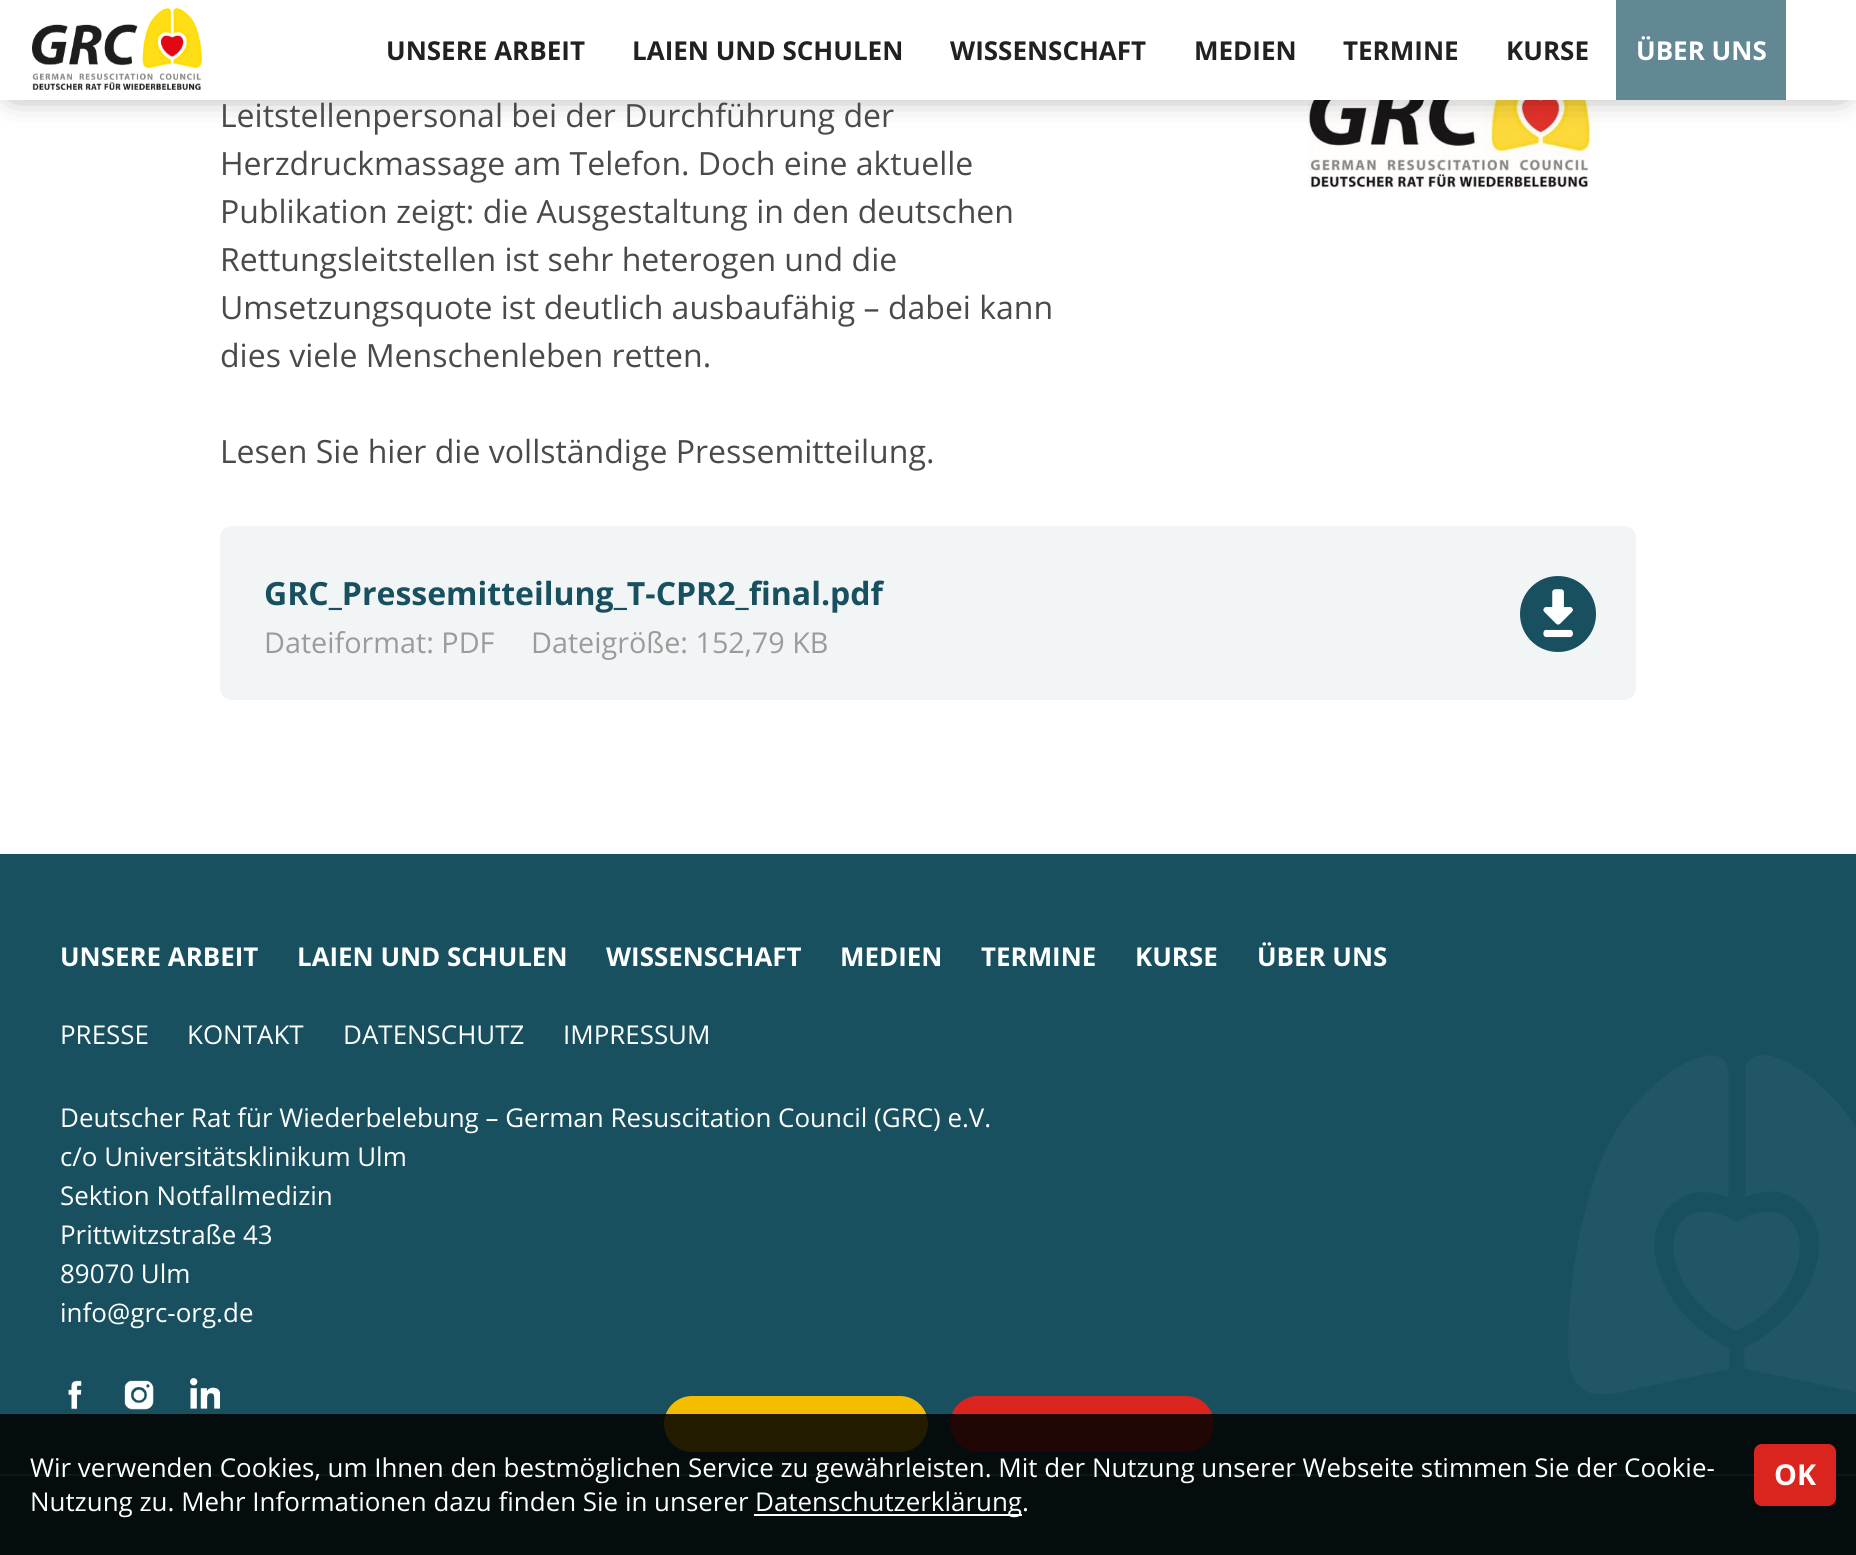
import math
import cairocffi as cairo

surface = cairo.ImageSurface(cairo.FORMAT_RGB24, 1856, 1555)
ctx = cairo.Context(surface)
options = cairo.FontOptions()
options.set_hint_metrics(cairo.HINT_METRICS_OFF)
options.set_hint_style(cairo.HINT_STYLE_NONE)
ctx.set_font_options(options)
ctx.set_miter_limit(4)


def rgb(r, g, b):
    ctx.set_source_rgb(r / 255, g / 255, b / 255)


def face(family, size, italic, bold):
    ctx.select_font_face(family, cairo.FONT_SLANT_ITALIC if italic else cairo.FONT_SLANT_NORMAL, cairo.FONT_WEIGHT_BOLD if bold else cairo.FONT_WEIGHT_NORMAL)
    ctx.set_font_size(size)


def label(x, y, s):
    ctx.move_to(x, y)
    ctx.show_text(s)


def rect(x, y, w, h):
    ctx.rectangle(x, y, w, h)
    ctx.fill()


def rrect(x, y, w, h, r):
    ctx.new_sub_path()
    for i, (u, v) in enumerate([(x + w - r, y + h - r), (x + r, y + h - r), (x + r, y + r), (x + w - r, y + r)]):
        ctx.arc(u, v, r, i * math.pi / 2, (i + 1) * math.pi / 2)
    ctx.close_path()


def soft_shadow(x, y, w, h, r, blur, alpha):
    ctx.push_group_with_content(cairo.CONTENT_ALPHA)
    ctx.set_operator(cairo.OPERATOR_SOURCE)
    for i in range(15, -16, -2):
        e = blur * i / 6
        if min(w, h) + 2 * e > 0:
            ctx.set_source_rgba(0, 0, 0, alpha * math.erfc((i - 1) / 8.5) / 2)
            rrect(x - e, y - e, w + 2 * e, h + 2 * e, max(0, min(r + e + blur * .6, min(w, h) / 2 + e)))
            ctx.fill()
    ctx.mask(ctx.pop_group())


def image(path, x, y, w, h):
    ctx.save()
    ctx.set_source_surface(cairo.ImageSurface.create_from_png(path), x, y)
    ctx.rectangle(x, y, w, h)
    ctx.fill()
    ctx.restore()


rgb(255, 255, 255)
ctx.paint()
image('image1.png', 1217, 100, 383, 89)
rgb(0, 0, 0)
soft_shadow(14, 14, 1828, 72, 0, 17, 0.75)
rgb(255, 255, 255)
rect(0, 0, 1856, 100)
image('image0.png', 32, 7, 170, 83)
face('Open Sans', 26, 0, 1)
rgb(32, 33, 33)
label(386, 60, 'UNSERE ARBEIT')
label(632, 60, 'LAIEN UND SCHULEN')
label(950, 60, 'WISSENSCHAFT')
label(1194, 60, 'MEDIEN')
label(1343, 60, 'TERMINE')
label(1506, 60, 'KURSE')
rgb(98, 136, 147)
rect(1616, 0, 170, 100)
rgb(255, 255, 255)
label(1636, 60, 'ÜBER UNS')
face('Open Sans', 32, 0, 0)
rgb(74, 74, 74)
label(220, 127, 'Leitstellenpersonal bei der Durchführung der')
label(220, 175, 'Herzdruckmassage am Telefon. Doch eine aktuelle')
label(220, 223, 'Publikation zeigt: die Ausgestaltung in den deutschen')
label(220, 271, 'Rettungsleitstellen ist sehr heterogen und die')
label(220, 319, 'Umsetzungsquote ist deutlich ausbaufähig – dabei kann')
label(220, 367, 'dies viele Menschenleben retten.')
label(220, 463, 'Lesen Sie hier die vollständige Pressemitteilung.')
rgb(241, 245, 246)
rrect(220, 526, 1416, 174, 12)
ctx.fill()
image('image2.png', 1520, 576, 76, 76)
face('Open Sans', 32, 0, 1)
rgb(24, 80, 95)
label(264, 605, 'GRC_Pressemitteilung_T-CPR2_final.pdf')
face('Open Sans', 28.75, 0, 0)
rgb(155, 155, 155)
label(264, 653, 'Dateiformat: PDF')
label(531, 653, 'Dateigröße: 152,79 KB')
rgb(24, 80, 95)
rect(0, 854, 1856, 620)
image('image3.png', 1568, 1055, 288, 339)
rgb(105, 141, 151)
rect(0, 1474, 1856, 2)
face('Open Sans', 25.92, 0, 1)
rgb(255, 255, 255)
label(60, 966, 'UNSERE ARBEIT')
label(297, 966, 'LAIEN UND SCHULEN')
label(606, 966, 'WISSENSCHAFT')
label(840, 966, 'MEDIEN')
label(981, 966, 'TERMINE')
label(1135, 966, 'KURSE')
label(1257, 966, 'ÜBER UNS')
face('Open Sans', 25.92, 0, 0)
label(60, 1044, 'PRESSE')
label(187, 1044, 'KONTAKT')
label(343, 1044, 'DATENSCHUTZ')
label(563, 1044, 'IMPRESSUM')
label(60, 1127, 'Deutscher Rat für Wiederbelebung – German Resuscitation Council (GRC) e.V.')
label(60, 1166, 'c/o Universitätsklinikum Ulm')
label(60, 1205, 'Sektion Notfallmedizin')
label(60, 1244, 'Prittwitzstraße 43')
label(60, 1283, '89070 Ulm')
label(60, 1322, 'info@grc-org.de')
image('image4.png', 68, 1380, 14, 30)
image('image5.png', 124, 1380, 30, 30)
image('image6.png', 190, 1378, 30, 31)
rgb(244, 189, 0)
rrect(664, 1396, 264, 56, 28)
ctx.fill()
rgb(217, 37, 30)
rrect(950, 1396, 264, 56, 28)
ctx.fill()
rgb(24, 80, 95)
rect(0, 1476, 1856, 79)
ctx.set_source_rgba(0, 0, 0, 0.85)
rect(0, 1414, 1856, 141)
rgb(255, 255, 255)
label(30, 1477, 'Wir verwenden Cookies, um Ihnen den bestmöglichen Service zu gewährleisten. Mit der Nutzung unserer Webseite stimmen Sie der Cookie-')
label(30, 1511, 'Nutzung zu. Mehr Informationen dazu finden Sie in unserer')
rect(754, 1514, 268, 2)
label(755, 1511, 'Datenschutzerklärung.')
rgb(217, 37, 30)
rrect(1754, 1444, 82, 62, 8)
ctx.fill()
face('Open Sans', 28.75, 0, 1)
rgb(255, 255, 255)
label(1774, 1485, 'OK')
surface.write_to_png('render.png')
